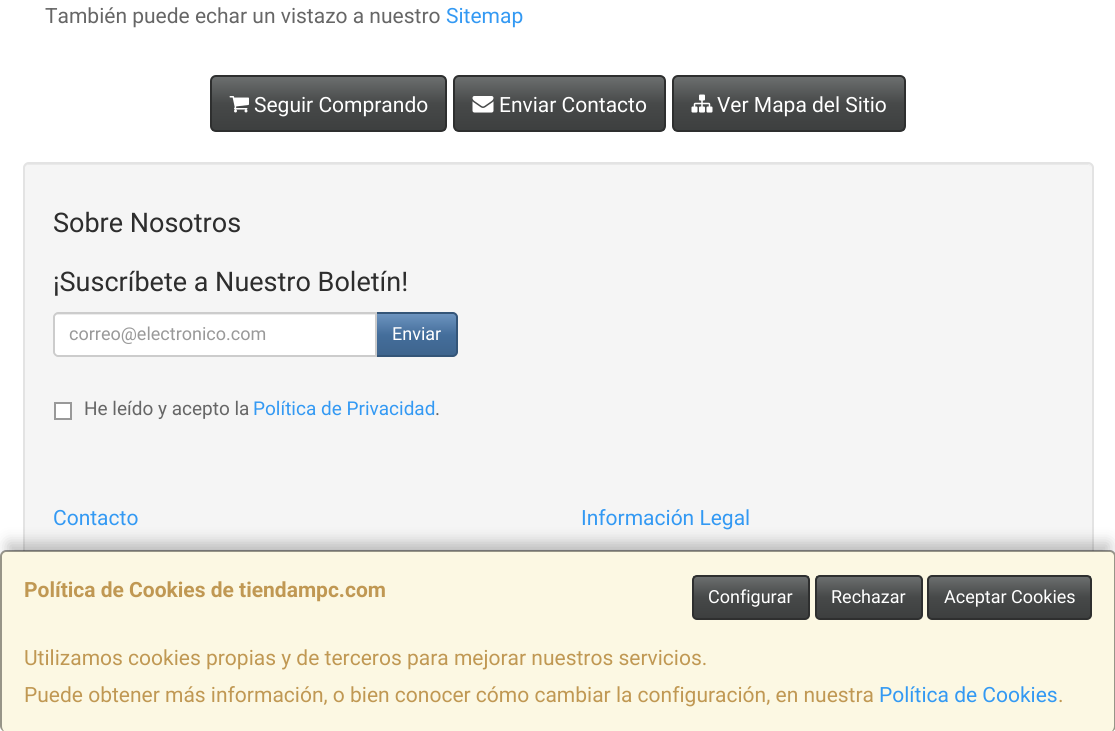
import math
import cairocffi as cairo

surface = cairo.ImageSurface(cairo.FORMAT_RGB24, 1115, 731)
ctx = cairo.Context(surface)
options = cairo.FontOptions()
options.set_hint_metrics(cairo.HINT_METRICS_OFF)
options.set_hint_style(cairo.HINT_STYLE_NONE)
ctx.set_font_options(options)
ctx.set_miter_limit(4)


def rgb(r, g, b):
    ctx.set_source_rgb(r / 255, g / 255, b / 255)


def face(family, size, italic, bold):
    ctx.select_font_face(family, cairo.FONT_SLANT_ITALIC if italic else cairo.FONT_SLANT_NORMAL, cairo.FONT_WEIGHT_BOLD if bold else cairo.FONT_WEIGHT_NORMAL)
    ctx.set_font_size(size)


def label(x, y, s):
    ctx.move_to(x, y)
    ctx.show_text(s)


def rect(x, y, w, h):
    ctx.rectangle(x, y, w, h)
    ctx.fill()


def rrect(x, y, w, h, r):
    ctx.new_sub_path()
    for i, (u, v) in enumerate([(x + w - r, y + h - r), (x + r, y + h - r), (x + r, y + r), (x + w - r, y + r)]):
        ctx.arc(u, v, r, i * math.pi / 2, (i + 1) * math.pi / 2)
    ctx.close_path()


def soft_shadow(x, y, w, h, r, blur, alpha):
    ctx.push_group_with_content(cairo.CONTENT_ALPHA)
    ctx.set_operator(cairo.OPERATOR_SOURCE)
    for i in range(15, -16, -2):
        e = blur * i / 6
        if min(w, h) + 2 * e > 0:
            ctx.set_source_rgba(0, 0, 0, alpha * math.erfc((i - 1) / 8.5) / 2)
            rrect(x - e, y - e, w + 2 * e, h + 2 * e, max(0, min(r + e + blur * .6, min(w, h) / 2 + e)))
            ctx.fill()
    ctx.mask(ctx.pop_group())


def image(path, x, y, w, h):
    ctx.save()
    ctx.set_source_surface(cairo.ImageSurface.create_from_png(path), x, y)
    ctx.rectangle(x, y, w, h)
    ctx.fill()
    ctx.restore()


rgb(255, 255, 255)
ctx.paint()
face('Roboto', 21, 0, 0)
rgb(102, 102, 102)
label(45, 23, 'También puede echar un vistazo a nuestro')
rgb(51, 153, 243)
label(446, 23, 'Sitemap')
ctx.save()
rrect(210, 75, 237, 57, 6)
ctx.clip()
gradient = cairo.LinearGradient(329, 76, 329, 131)
gradient.add_color_stop_rgba(0, 0.427, 0.439, 0.439, 1)
gradient.add_color_stop_rgba(0.5, 0.278, 0.286, 0.286, 1)
gradient.add_color_stop_rgba(1, 0.239, 0.247, 0.247, 1)
ctx.set_source(gradient)
rect(212, 77, 234, 54)
ctx.restore()
rrect(211, 76, 235, 55, 5)
rgb(46, 47, 47)
ctx.stroke()
image('image0.png', 229, 96, 20, 17)
rgb(255, 255, 255)
label(254, 112, 'Seguir Comprando')
ctx.save()
rrect(453, 75, 213, 57, 6)
ctx.clip()
gradient = cairo.LinearGradient(560, 76, 560, 131)
gradient.add_color_stop_rgba(0, 0.427, 0.439, 0.439, 1)
gradient.add_color_stop_rgba(0.5, 0.278, 0.286, 0.286, 1)
gradient.add_color_stop_rgba(1, 0.239, 0.247, 0.247, 1)
ctx.set_source(gradient)
rect(455, 77, 210, 54)
ctx.restore()
rrect(454, 76, 211, 55, 5)
rgb(46, 47, 47)
ctx.stroke()
image('image1.png', 472, 96, 22, 17)
rgb(255, 255, 255)
label(499, 112, 'Enviar Contacto')
ctx.save()
rrect(672, 75, 234, 57, 6)
ctx.clip()
gradient = cairo.LinearGradient(789, 76, 789, 131)
gradient.add_color_stop_rgba(0, 0.427, 0.439, 0.439, 1)
gradient.add_color_stop_rgba(0.5, 0.278, 0.286, 0.286, 1)
gradient.add_color_stop_rgba(1, 0.239, 0.247, 0.247, 1)
ctx.set_source(gradient)
rect(674, 77, 231, 54)
ctx.restore()
rrect(673, 76, 232, 55, 5)
rgb(46, 47, 47)
ctx.stroke()
image('image2.png', 691, 94, 22, 19)
rgb(255, 255, 255)
label(717, 112, 'Ver Mapa del Sitio')
rgb(245, 245, 245)
rrect(23, 162, 1071, 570, 6)
ctx.fill()
rgb(233, 233, 233)
ctx.new_path()
ctx.move_to(28, 165)
ctx.line_to(1088, 165)
ctx.curve_to(1090, 165, 1092, 167, 1092, 170)
ctx.curve_to(1092, 167, 1090, 164, 1087, 164)
ctx.line_to(29, 164)
ctx.curve_to(26, 164, 24, 167, 24, 170)
ctx.curve_to(24, 167, 26, 165, 28, 165)
ctx.close_path()
ctx.fill()
rrect(24, 163, 1069, 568, 5)
rgb(227, 227, 227)
ctx.stroke()
face('Roboto', 27, 0, 0)
rgb(45, 45, 45)
label(53, 232, 'Sobre Nosotros')
label(53, 291, '¡Suscríbete a Nuestro Boletín!')
gradient = cairo.LinearGradient(416, 314, 416, 356)
gradient.add_color_stop_rgba(0, 0.427, 0.58, 0.749, 1)
gradient.add_color_stop_rgba(0.5, 0.267, 0.431, 0.608, 1)
gradient.add_color_stop_rgba(1, 0.243, 0.392, 0.553, 1)
ctx.set_source(gradient)
rect(377, 314, 79, 41)
ctx.new_path()
ctx.move_to(376, 313)
ctx.line_to(453, 313)
ctx.curve_to(455, 313, 457, 315, 457, 317)
ctx.line_to(457, 352)
ctx.curve_to(457, 354, 455, 356, 453, 356)
ctx.line_to(376, 356)
ctx.close_path()
rgb(52, 85, 120)
ctx.stroke()
rgb(255, 255, 255)
ctx.new_path()
ctx.move_to(58, 312)
ctx.line_to(377, 312)
ctx.line_to(377, 357)
ctx.line_to(58, 357)
ctx.curve_to(55, 357, 53, 355, 53, 352)
ctx.line_to(53, 317)
ctx.curve_to(53, 314, 55, 312, 58, 312)
ctx.close_path()
ctx.fill()
rgb(236, 236, 236)
ctx.new_path()
ctx.move_to(57, 315)
ctx.line_to(375, 315)
ctx.line_to(375, 314)
ctx.line_to(57, 314)
ctx.curve_to(55, 314, 54, 316, 54, 318)
ctx.curve_to(54, 316, 55, 315, 57, 315)
ctx.close_path()
ctx.fill()
ctx.new_path()
ctx.move_to(58, 313)
ctx.line_to(376, 313)
ctx.line_to(376, 356)
ctx.line_to(58, 356)
ctx.curve_to(56, 356, 54, 354, 54, 352)
ctx.line_to(54, 317)
ctx.curve_to(54, 315, 56, 313, 58, 313)
ctx.close_path()
rgb(204, 204, 204)
ctx.stroke()
face('Roboto', 18, 0, 0)
rgb(153, 153, 153)
label(69, 340, 'correo@electronico.com')
rgb(255, 255, 255)
label(392, 340, 'Enviar')
ctx.rectangle(55, 403, 16, 16)
ctx.fill_preserve()
rgb(153, 153, 153)
ctx.stroke()
face('Roboto', 19, 0, 0)
rgb(102, 102, 102)
label(84, 415, 'He leído y acepto la')
rgb(51, 153, 243)
label(253, 415, 'Política de Privacidad')
rgb(102, 102, 102)
label(435, 415, '.')
face('Roboto', 21, 0, 0)
rgb(51, 153, 243)
label(53, 525, 'Contacto')
label(581, 525, 'Información Legal')
rgb(0, 0, 0)
soft_shadow(8, 543, 1101, 167, 0, 7.5, 0.25)
rgb(252, 248, 227)
rrect(0, 551, 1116, 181, 6)
ctx.fill()
ctx.set_source_rgba(0, 0, 0, 0.4)
ctx.set_fill_rule(cairo.FILL_RULE_EVEN_ODD)
ctx.new_path()
ctx.move_to(6, 550)
ctx.line_to(1110, 550)
ctx.curve_to(1113, 550, 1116, 553, 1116, 556)
ctx.line_to(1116, 726)
ctx.curve_to(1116, 729, 1113, 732, 1110, 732)
ctx.line_to(6, 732)
ctx.curve_to(3, 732, 0, 729, 0, 726)
ctx.line_to(0, 556)
ctx.curve_to(0, 553, 3, 550, 6, 550)
ctx.close_path()
ctx.move_to(6, 552)
ctx.line_to(1110, 552)
ctx.curve_to(1112, 552, 1114, 554, 1114, 556)
ctx.line_to(1114, 726)
ctx.curve_to(1114, 729, 1112, 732, 1110, 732)
ctx.line_to(6, 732)
ctx.curve_to(4, 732, 2, 729, 2, 726)
ctx.line_to(2, 556)
ctx.curve_to(2, 554, 4, 552, 6, 552)
ctx.close_path()
ctx.fill()
face('Roboto', 21, 0, 1)
rgb(192, 152, 83)
label(24, 597, 'Política de Cookies de tiendampc.com')
gradient = cairo.LinearGradient(751, 576, 751, 618)
gradient.add_color_stop_rgba(0, 0.427, 0.439, 0.439, 1)
gradient.add_color_stop_rgba(0.5, 0.278, 0.286, 0.286, 1)
gradient.add_color_stop_rgba(1, 0.239, 0.247, 0.247, 1)
ctx.set_source(gradient)
rect(693, 576, 116, 42)
rrect(693, 576, 116, 43, 4)
rgb(46, 47, 47)
ctx.stroke()
face('Roboto', 18, 0, 0)
rgb(255, 255, 255)
label(708, 603, 'Configurar')
gradient = cairo.LinearGradient(869, 576, 869, 618)
gradient.add_color_stop_rgba(0, 0.427, 0.439, 0.439, 1)
gradient.add_color_stop_rgba(0.5, 0.278, 0.286, 0.286, 1)
gradient.add_color_stop_rgba(1, 0.239, 0.247, 0.247, 1)
ctx.set_source(gradient)
rect(816, 576, 105, 42)
rrect(816, 576, 106, 43, 4)
rgb(46, 47, 47)
ctx.stroke()
rgb(255, 255, 255)
label(831, 603, 'Rechazar')
gradient = cairo.LinearGradient(1010, 576, 1010, 618)
gradient.add_color_stop_rgba(0, 0.427, 0.439, 0.439, 1)
gradient.add_color_stop_rgba(0.5, 0.278, 0.286, 0.286, 1)
gradient.add_color_stop_rgba(1, 0.239, 0.247, 0.247, 1)
ctx.set_source(gradient)
rect(929, 576, 162, 42)
rrect(928, 576, 163, 43, 4)
rgb(46, 47, 47)
ctx.stroke()
rgb(255, 255, 255)
label(944, 603, 'Aceptar Cookies')
face('Roboto', 21, 0, 0)
rgb(192, 152, 83)
label(24, 665, 'Utilizamos cookies propias y de terceros para mejorar nuestros servicios.')
label(24, 702, 'Puede obtener más información, o bien conocer cómo cambiar la configuración, en nuestra')
rgb(51, 153, 243)
label(879, 702, 'Política de Cookies')
rgb(192, 152, 83)
label(1058, 702, '.')
surface.write_to_png('render.png')
